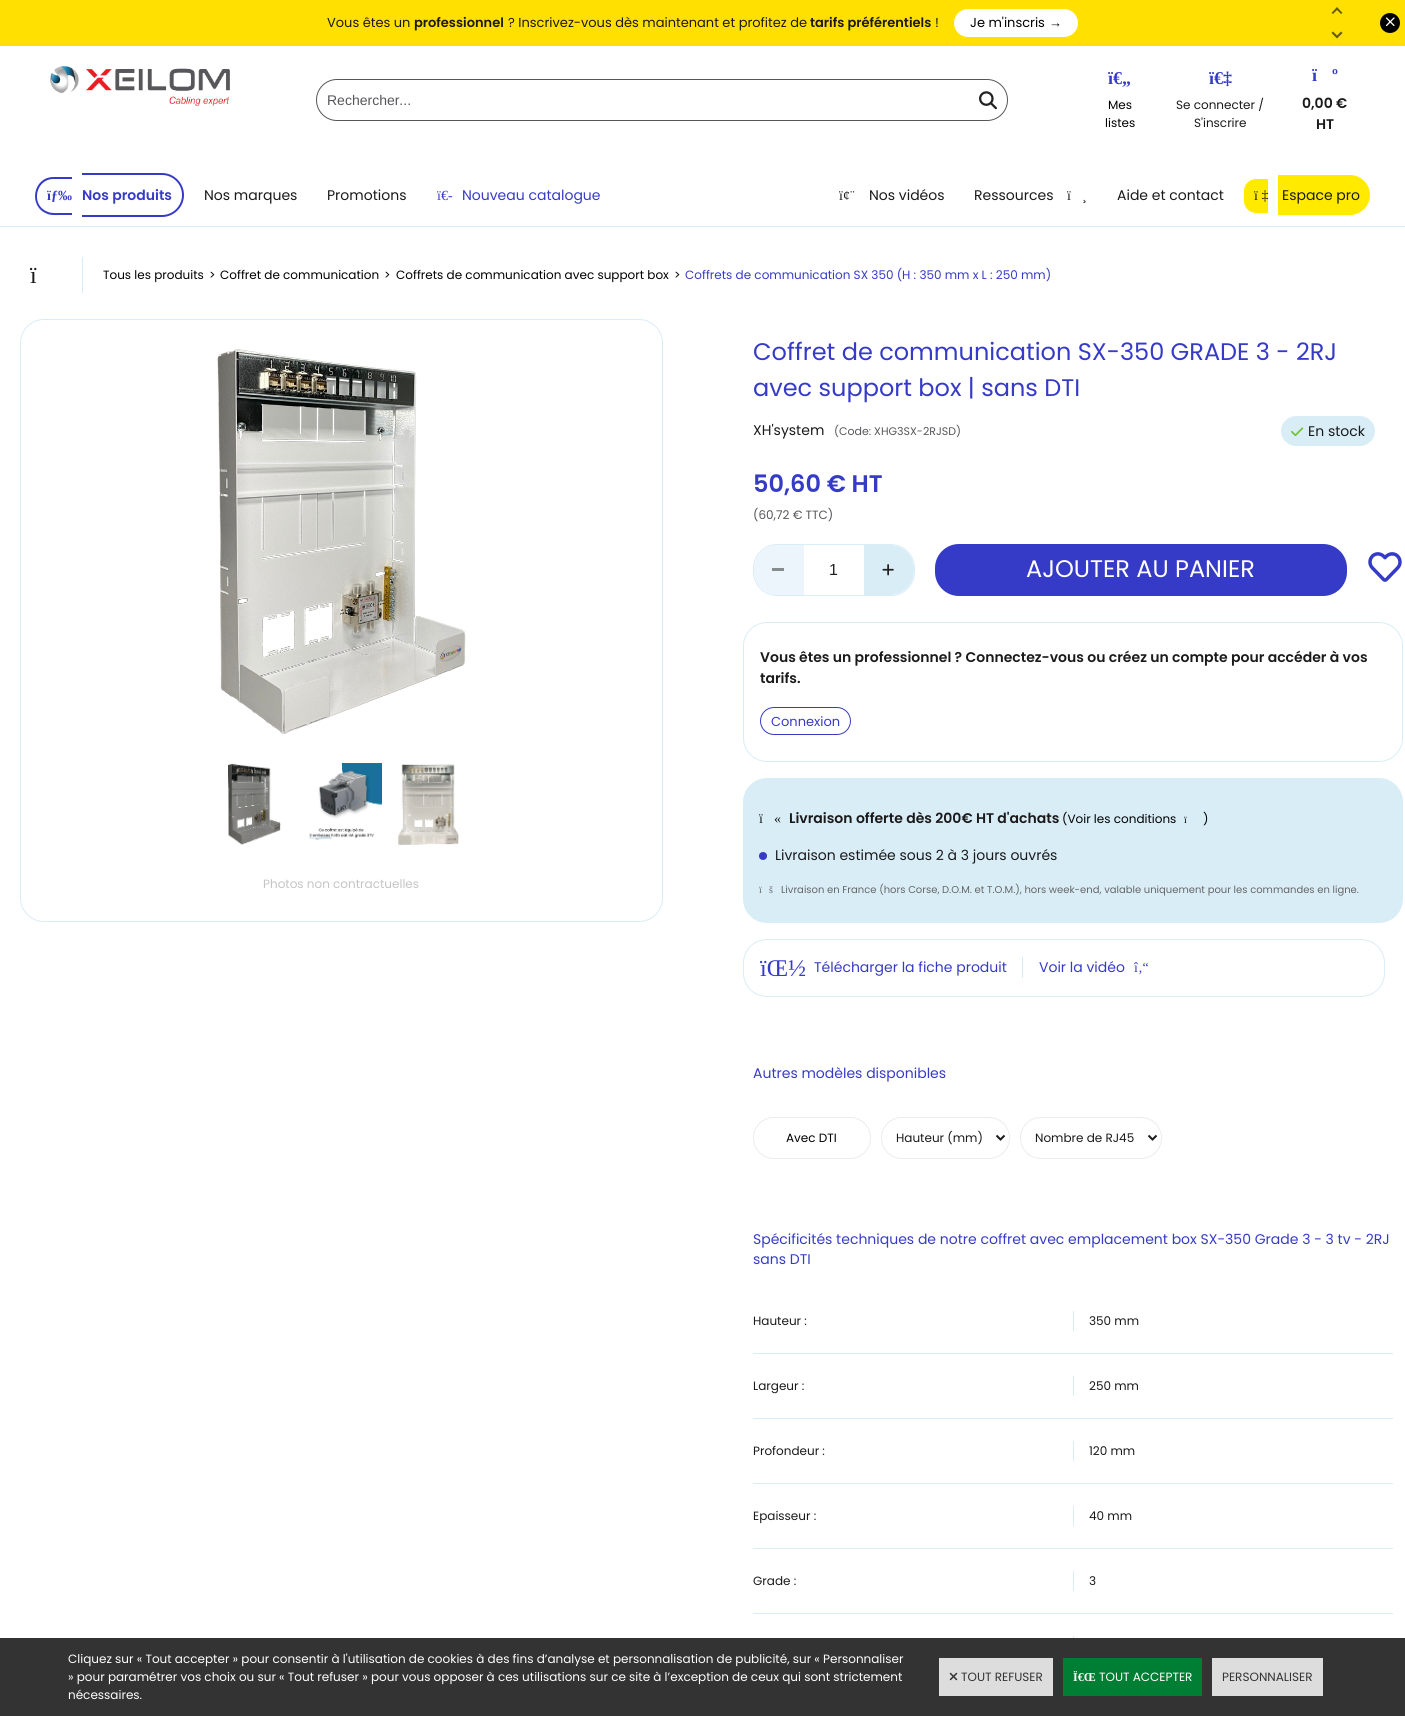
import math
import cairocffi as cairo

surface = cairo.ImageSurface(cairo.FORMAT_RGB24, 1405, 1716)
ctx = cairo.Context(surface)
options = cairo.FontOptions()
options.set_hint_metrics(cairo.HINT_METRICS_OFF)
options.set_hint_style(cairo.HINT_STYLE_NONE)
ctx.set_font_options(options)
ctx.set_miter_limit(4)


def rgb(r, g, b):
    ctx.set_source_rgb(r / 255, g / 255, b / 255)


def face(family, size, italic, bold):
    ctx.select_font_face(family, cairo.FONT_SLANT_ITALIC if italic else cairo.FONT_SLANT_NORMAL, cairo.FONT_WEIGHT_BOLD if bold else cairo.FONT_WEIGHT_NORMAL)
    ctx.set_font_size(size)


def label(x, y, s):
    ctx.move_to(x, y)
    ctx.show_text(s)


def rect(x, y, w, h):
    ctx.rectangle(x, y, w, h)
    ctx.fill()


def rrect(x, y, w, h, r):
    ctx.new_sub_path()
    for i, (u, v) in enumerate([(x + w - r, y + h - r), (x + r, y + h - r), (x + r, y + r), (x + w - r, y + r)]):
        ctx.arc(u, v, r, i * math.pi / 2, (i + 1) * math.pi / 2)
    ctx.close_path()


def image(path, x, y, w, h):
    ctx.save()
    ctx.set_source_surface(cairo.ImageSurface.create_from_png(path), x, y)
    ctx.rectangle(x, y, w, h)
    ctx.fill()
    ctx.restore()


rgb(255, 255, 255)
ctx.paint()
rgb(255, 224, 0)
rect(0, 0, 1405, 46)
face('Poppins', 13, 0, 0)
rgb(26, 26, 26)
label(327, 27, 'Vous êtes un')
face('Poppins SemiBold', 13, 0, 0)
label(414, 27, 'professionnel')
face('Poppins', 13, 0, 0)
label(508, 27, '? Inscrivez-vous dès maintenant et profitez de')
face('Poppins SemiBold', 13, 0, 0)
label(810, 27, 'tarifs préférentiels')
face('Poppins', 13, 0, 0)
label(935, 27, '!')
rgb(255, 255, 255)
rrect(954, 9, 124, 28, 14)
ctx.fill()
rgb(0, 0, 0)
label(970, 27, 'Je m\'inscris')
face('Liberation Sans', 13, 0, 0)
label(1049, 27, '→')
rgb(102, 90, 0)
ctx.new_path()
ctx.move_to(1331.5, 13)
ctx.line_to(1337, 7)
ctx.line_to(1337, 10)
ctx.line_to(1333, 14)
ctx.close_path()
ctx.move_to(1337, 7)
ctx.line_to(1342.5, 13)
ctx.line_to(1341, 14)
ctx.line_to(1337, 10)
ctx.close_path()
ctx.move_to(1342.5, 33)
ctx.line_to(1337, 38.5)
ctx.line_to(1337, 35.5)
ctx.line_to(1341, 31.5)
ctx.close_path()
ctx.fill()
ctx.new_path()
ctx.move_to(1337, 38.5)
ctx.line_to(1331.5, 33)
ctx.line_to(1333, 31.5)
ctx.line_to(1337, 35.5)
ctx.close_path()
ctx.fill()
rgb(0, 0, 0)
ctx.arc(1390, 23, 10, 0, 2 * math.pi)
ctx.fill()
image('image0.png', 1385, 17, 10, 10)
image('image1.png', 50, 65, 180, 42)
rrect(316.5, 79.5, 691, 41, 20.5)
rgb(87, 86, 91)
ctx.set_line_width(1)
ctx.stroke()
face('Liberation Sans', 14, 0, 0)
label(327, 105, 'Rechercher...')
image('image2.png', 979, 91, 18, 19)
face('Liberation Serif', 18, 0, 1)
rgb(54, 59, 199)
label(1108, 84, 'ï€„')
face('Poppins', 12, 0, 0)
rgb(0, 0, 0)
label(1108, 109, 'Mes')
label(1105, 127, 'listes')
face('Liberation Serif', 18, 0, 1)
rgb(54, 59, 199)
label(1209, 84, 'ï€‡')
face('Poppins', 12, 0, 0)
rgb(26, 26, 26)
label(1176, 109, 'Se connecter /')
label(1194, 127, 'S\'inscrire')
face('Liberation Serif', 18, 0, 1)
rgb(54, 59, 199)
label(1312, 81, 'ï')
label(1332, 81, 'º')
face('Poppins SemiBold', 14, 0, 0)
rgb(26, 26, 26)
label(1302, 108, '0,00 €')
label(1316, 129, 'HT')
rgb(217, 237, 247)
rect(0, 226, 1405, 1)
rgb(54, 59, 199)
ctx.set_fill_rule(cairo.FILL_RULE_EVEN_ODD)
ctx.new_path()
ctx.move_to(53.5, 177)
ctx.line_to(72, 177)
ctx.line_to(72, 215)
ctx.line_to(59.5, 215)
ctx.curve_to(55, 215, 50.5, 215.5, 46.5, 213.5)
ctx.curve_to(28, 206, 33, 177, 53.5, 177)
ctx.close_path()
ctx.move_to(53.5, 179)
ctx.line_to(72, 179)
ctx.line_to(72, 213)
ctx.line_to(59.5, 213)
ctx.curve_to(55.5, 213, 51, 213.5, 47, 211.5)
ctx.curve_to(30.5, 205, 35.5, 179, 53.5, 179)
ctx.close_path()
ctx.fill()
ctx.new_path()
ctx.move_to(82, 173)
ctx.line_to(162, 173)
ctx.curve_to(174, 173, 184, 183, 184, 195)
ctx.curve_to(184, 207, 174, 217, 162, 217)
ctx.line_to(82, 217)
ctx.close_path()
ctx.move_to(82, 175)
ctx.line_to(162, 175)
ctx.curve_to(173, 175, 182, 184, 182, 195)
ctx.curve_to(182, 206, 173, 215, 162, 215)
ctx.line_to(82, 215)
ctx.close_path()
ctx.fill()
face('Liberation Serif', 14, 0, 1)
label(47, 200, 'ïƒ‰')
face('Poppins SemiBold', 14, 0, 0)
label(82, 200, 'Nos produits')
face('Poppins', 14, 0, 0)
rgb(26, 26, 26)
label(204, 200, 'Nos marques')
label(327, 200, 'Promotions')
face('Liberation Serif', 14, 0, 0)
rgb(54, 59, 199)
label(437, 200, 'ï€-')
face('Poppins', 14, 0, 0)
label(462, 200, 'Nouveau catalogue')
face('Liberation Serif', 14, 0, 0)
rgb(26, 26, 26)
label(839, 200, 'ï¢¨')
face('Poppins', 14, 0, 0)
label(869, 200, 'Nos vidéos')
label(974, 200, 'Ressources')
face('Liberation Serif', 14, 0, 0)
label(1067, 200, 'ï')
label(1082, 200, '¸')
face('Poppins', 14, 0, 0)
label(1117, 200, 'Aide et contact')
rgb(255, 234, 0)
ctx.new_path()
ctx.move_to(1256, 179)
ctx.line_to(1268, 179)
ctx.line_to(1268, 213)
ctx.line_to(1256, 213)
ctx.curve_to(1249.5, 213, 1244, 207.5, 1244, 201)
ctx.line_to(1244, 191)
ctx.curve_to(1244, 184.5, 1249.5, 179, 1256, 179)
ctx.close_path()
ctx.fill()
ctx.new_path()
ctx.move_to(1278, 175)
ctx.line_to(1350, 175)
ctx.curve_to(1361, 175, 1370, 184, 1370, 195)
ctx.curve_to(1370, 206, 1361, 215, 1350, 215)
ctx.line_to(1278, 215)
ctx.close_path()
ctx.fill()
face('Liberation Serif', 14, 0, 0)
rgb(26, 26, 26)
label(1254, 200, 'ï ‡')
face('Poppins', 14, 0, 0)
label(1282, 200, 'Espace pro')
rgb(217, 237, 247)
rect(82, 257, 1, 36)
face('Liberation Serif', 24, 0, 0)
rgb(26, 26, 26)
label(30, 283, 'ï')
face('Poppins', 12, 0, 0)
rgb(0, 0, 0)
label(103, 279, 'Tous les produits')
label(209, 279, '>')
label(220, 279, 'Coffret de communication')
label(384, 279, '>')
label(396, 279, 'Coffrets de communication avec support box')
label(674, 279, '>')
rgb(54, 59, 199)
label(685, 279, 'Coffrets de communication SX 350 (H : 350 mm x L : 250 mm)')
rrect(20.5, 319.5, 642, 602, 23.5)
rgb(217, 237, 247)
ctx.stroke()
image('image3.png', 217, 349, 249, 385)
image('image4.png', 228, 763, 53, 82)
image('image5.png', 308, 763, 74, 78)
image('image6.png', 398, 764, 61, 81)
rgb(196, 196, 196)
label(263, 888, 'Photos non contractuelles')
face('Poppins', 24, 0, 0)
rgb(54, 59, 199)
label(753, 360, 'Coffret de communication SX-350 GRADE 3 - 2RJ')
label(753, 396, 'avec support box | sans DTI')
face('Poppins', 14, 0, 0)
rgb(26, 26, 26)
label(753, 435, 'XH\'system')
face('Poppins', 11, 0, 0)
rgb(87, 86, 91)
label(834, 435, '(Code: XHG3SX-2RJSD)')
rgb(217, 237, 247)
rrect(1281, 416, 94, 30, 15)
ctx.fill()
image('image7.png', 1291, 427, 13, 10)
face('Poppins', 14, 0, 0)
rgb(26, 26, 26)
label(1308, 436, 'En stock')
face('Poppins SemiBold', 24, 0, 0)
rgb(54, 59, 199)
label(753, 492, '50,60 € HT')
face('Poppins', 12, 0, 0)
rgb(87, 86, 91)
label(753, 519, '(60,72 € TTC)')
rrect(753.5, 544.5, 161, 51, 23.5)
rgb(217, 237, 247)
ctx.stroke()
ctx.set_source_rgba(0.851, 0.929, 0.969, 0.5)
ctx.new_path()
ctx.move_to(778, 545)
ctx.line_to(804, 545)
ctx.line_to(804, 595)
ctx.line_to(778, 595)
ctx.curve_to(764.5, 595, 754, 584.5, 754, 571)
ctx.line_to(754, 569)
ctx.curve_to(754, 555.5, 764.5, 545, 778, 545)
ctx.close_path()
ctx.fill()
rgb(135, 140, 142)
rect(772, 568, 12, 3)
face('Liberation Sans', 16, 0, 0)
rgb(33, 33, 33)
label(829, 575, '1')
rgb(217, 237, 247)
ctx.new_path()
ctx.move_to(864, 545)
ctx.line_to(890, 545)
ctx.curve_to(903.5, 545, 914, 555.5, 914, 569)
ctx.line_to(914, 571)
ctx.curve_to(914, 584.5, 903.5, 595, 890, 595)
ctx.line_to(864, 595)
ctx.close_path()
ctx.fill()
image('image8.png', 882, 564, 12, 12)
rgb(54, 59, 199)
rrect(935, 544, 412, 52, 24)
ctx.fill()
face('Poppins', 24, 0, 0)
rgb(255, 255, 255)
label(1026, 577, 'AJOUTER AU PANIER')
image('image9.png', 1368, 552, 34, 30)
rrect(743.5, 622.5, 659, 139, 23.5)
rgb(217, 237, 247)
ctx.stroke()
face('Poppins SemiBold', 14, 0, 0)
rgb(26, 26, 26)
label(760, 662, 'Vous êtes un professionnel ? Connectez-vous ou créez un compte pour accéder à vos')
label(760, 683, 'tarifs.')
rrect(760.5, 707.5, 90, 27, 13.5)
rgb(54, 59, 199)
ctx.stroke()
face('Poppins', 13, 0, 0)
label(771, 726, 'Connexion')
rgb(217, 237, 247)
rrect(743, 778, 660, 145, 24)
ctx.fill()
face('Liberation Serif', 14, 0, 0)
rgb(26, 26, 26)
label(759, 823, 'ï')
label(774, 823, '«')
face('Poppins SemiBold', 14, 0, 0)
label(789, 823, 'Livraison offerte dès 200€ HT d\'achats')
face('Poppins', 12, 0, 0)
rgb(0, 0, 0)
label(1062, 823, '(Voir les conditions')
face('Liberation Serif', 10, 0, 0)
label(1184, 823, 'ï')
face('Poppins', 12, 0, 0)
label(1203, 823, ')')
rgb(54, 59, 199)
ctx.new_path()
ctx.arc(763, 856, 4, 0, 2 * math.pi)
ctx.fill()
face('Poppins', 14, 0, 0)
rgb(26, 26, 26)
label(775, 860, 'Livraison estimée sous 2 à 3 jours ouvrés')
face('Liberation Serif', 10, 0, 0)
rgb(102, 102, 102)
label(759, 893, 'ï')
label(769, 893, 'š')
face('Poppins', 10, 0, 0)
label(781, 893, 'Livraison en France (hors Corse, D.O.M. et T.O.M.), hors week-end, valable uniquement pour les commandes en ligne.')
rrect(743.5, 939.5, 641, 57, 23.5)
rgb(217, 237, 247)
ctx.stroke()
face('Liberation Serif', 24, 0, 0)
rgb(54, 59, 199)
label(760, 976, 'ïŒ½')
face('Poppins', 14, 0, 0)
label(814, 972, 'Télécharger la fiche produit')
rgb(217, 237, 247)
rect(1022, 957, 1, 21)
rgb(54, 59, 199)
label(1039, 972, 'Voir la vidéo')
face('Liberation Serif', 14, 0, 0)
label(1134, 972, 'î‚“')
face('Poppins', 14, 0, 0)
label(753, 1078, 'Autres modèles disponibles')
rrect(753.5, 1117.5, 117, 41, 20.5)
rgb(236, 236, 236)
ctx.stroke()
face('Poppins', 12, 0, 0)
rgb(0, 0, 0)
label(786, 1142, 'Avec DTI')
rrect(881.5, 1117.5, 128, 41, 20.5)
rgb(236, 236, 236)
ctx.stroke()
ctx.new_path()
ctx.move_to(996.5, 1135.5)
ctx.line_to(1000.5, 1139.5)
ctx.line_to(1004.5, 1135.5)
rgb(26, 26, 26)
ctx.set_line_width(2)
ctx.stroke()
label(896, 1142, 'Hauteur (mm)')
rrect(1020.5, 1117.5, 141, 41, 20.5)
rgb(236, 236, 236)
ctx.set_line_width(1)
ctx.stroke()
ctx.new_path()
ctx.move_to(1148.5, 1135.5)
ctx.line_to(1152.5, 1139.5)
ctx.line_to(1156.5, 1135.5)
rgb(26, 26, 26)
ctx.set_line_width(2)
ctx.stroke()
label(1035, 1142, 'Nombre de RJ45')
face('Poppins', 14, 0, 0)
rgb(54, 59, 199)
label(753, 1244, 'Spécificités techniques de notre coffret avec emplacement box SX-350 Grade 3 - 3 tv - 2RJ')
label(753, 1264, 'sans DTI')
rgb(217, 237, 247)
rect(753, 1353, 640, 1)
face('Poppins', 12, 0, 0)
rgb(26, 26, 26)
label(753, 1325, 'Hauteur :')
rgb(217, 237, 247)
rect(1073, 1311, 1, 20)
rgb(26, 26, 26)
label(1089, 1325, '350 mm')
rgb(217, 237, 247)
rect(753, 1418, 640, 1)
rgb(26, 26, 26)
label(753, 1390, 'Largeur :')
rgb(217, 237, 247)
rect(1073, 1376, 1, 20)
rgb(26, 26, 26)
label(1089, 1390, '250 mm')
rgb(217, 237, 247)
rect(753, 1483, 640, 1)
rgb(26, 26, 26)
label(753, 1455, 'Profondeur :')
rgb(217, 237, 247)
rect(1073, 1441, 1, 20)
rgb(26, 26, 26)
label(1089, 1455, '120 mm')
rgb(217, 237, 247)
rect(753, 1548, 640, 1)
rgb(26, 26, 26)
label(753, 1520, 'Epaisseur :')
rgb(217, 237, 247)
rect(1073, 1506, 1, 20)
rgb(26, 26, 26)
label(1089, 1520, '40 mm')
rgb(217, 237, 247)
rect(753, 1613, 640, 1)
rgb(26, 26, 26)
label(753, 1585, 'Grade :')
rgb(217, 237, 247)
rect(1073, 1571, 1, 20)
rgb(26, 26, 26)
label(1089, 1585, '3')
rgb(217, 237, 247)
rect(1073, 1636, 1, 2)
rgb(51, 51, 51)
rect(0, 1638, 1405, 78)
rgb(255, 255, 255)
label(68, 1663, 'Cliquez sur « Tout accepter » pour consentir à l\'utilisation de cookies à des fins d’analyse et personnalisation de publicité, sur « Personnaliser')
label(68, 1681, '» pour paramétrer vos choix ou sur « Tout refuser » pour vous opposer à ces utilisations sur ce site à l’exception de ceux qui sont strictement')
label(68, 1699, 'nécessaires.')
rgb(221, 221, 221)
rect(939, 1658, 114, 38)
image('image10.png', 949, 1672, 9, 9)
rgb(51, 51, 51)
label(961, 1681, 'TOUT REFUSER')
rgb(0, 126, 51)
rect(1063, 1658, 139, 38)
face('Liberation Serif', 12, 0, 1)
rgb(255, 255, 255)
label(1073, 1681, 'Ï€Œ')
face('Poppins', 12, 0, 0)
label(1099, 1681, 'TOUT ACCEPTER')
rgb(221, 221, 221)
rect(1212, 1658, 111, 38)
rgb(51, 51, 51)
label(1222, 1681, 'PERSONNALISER')
surface.write_to_png('render.png')
